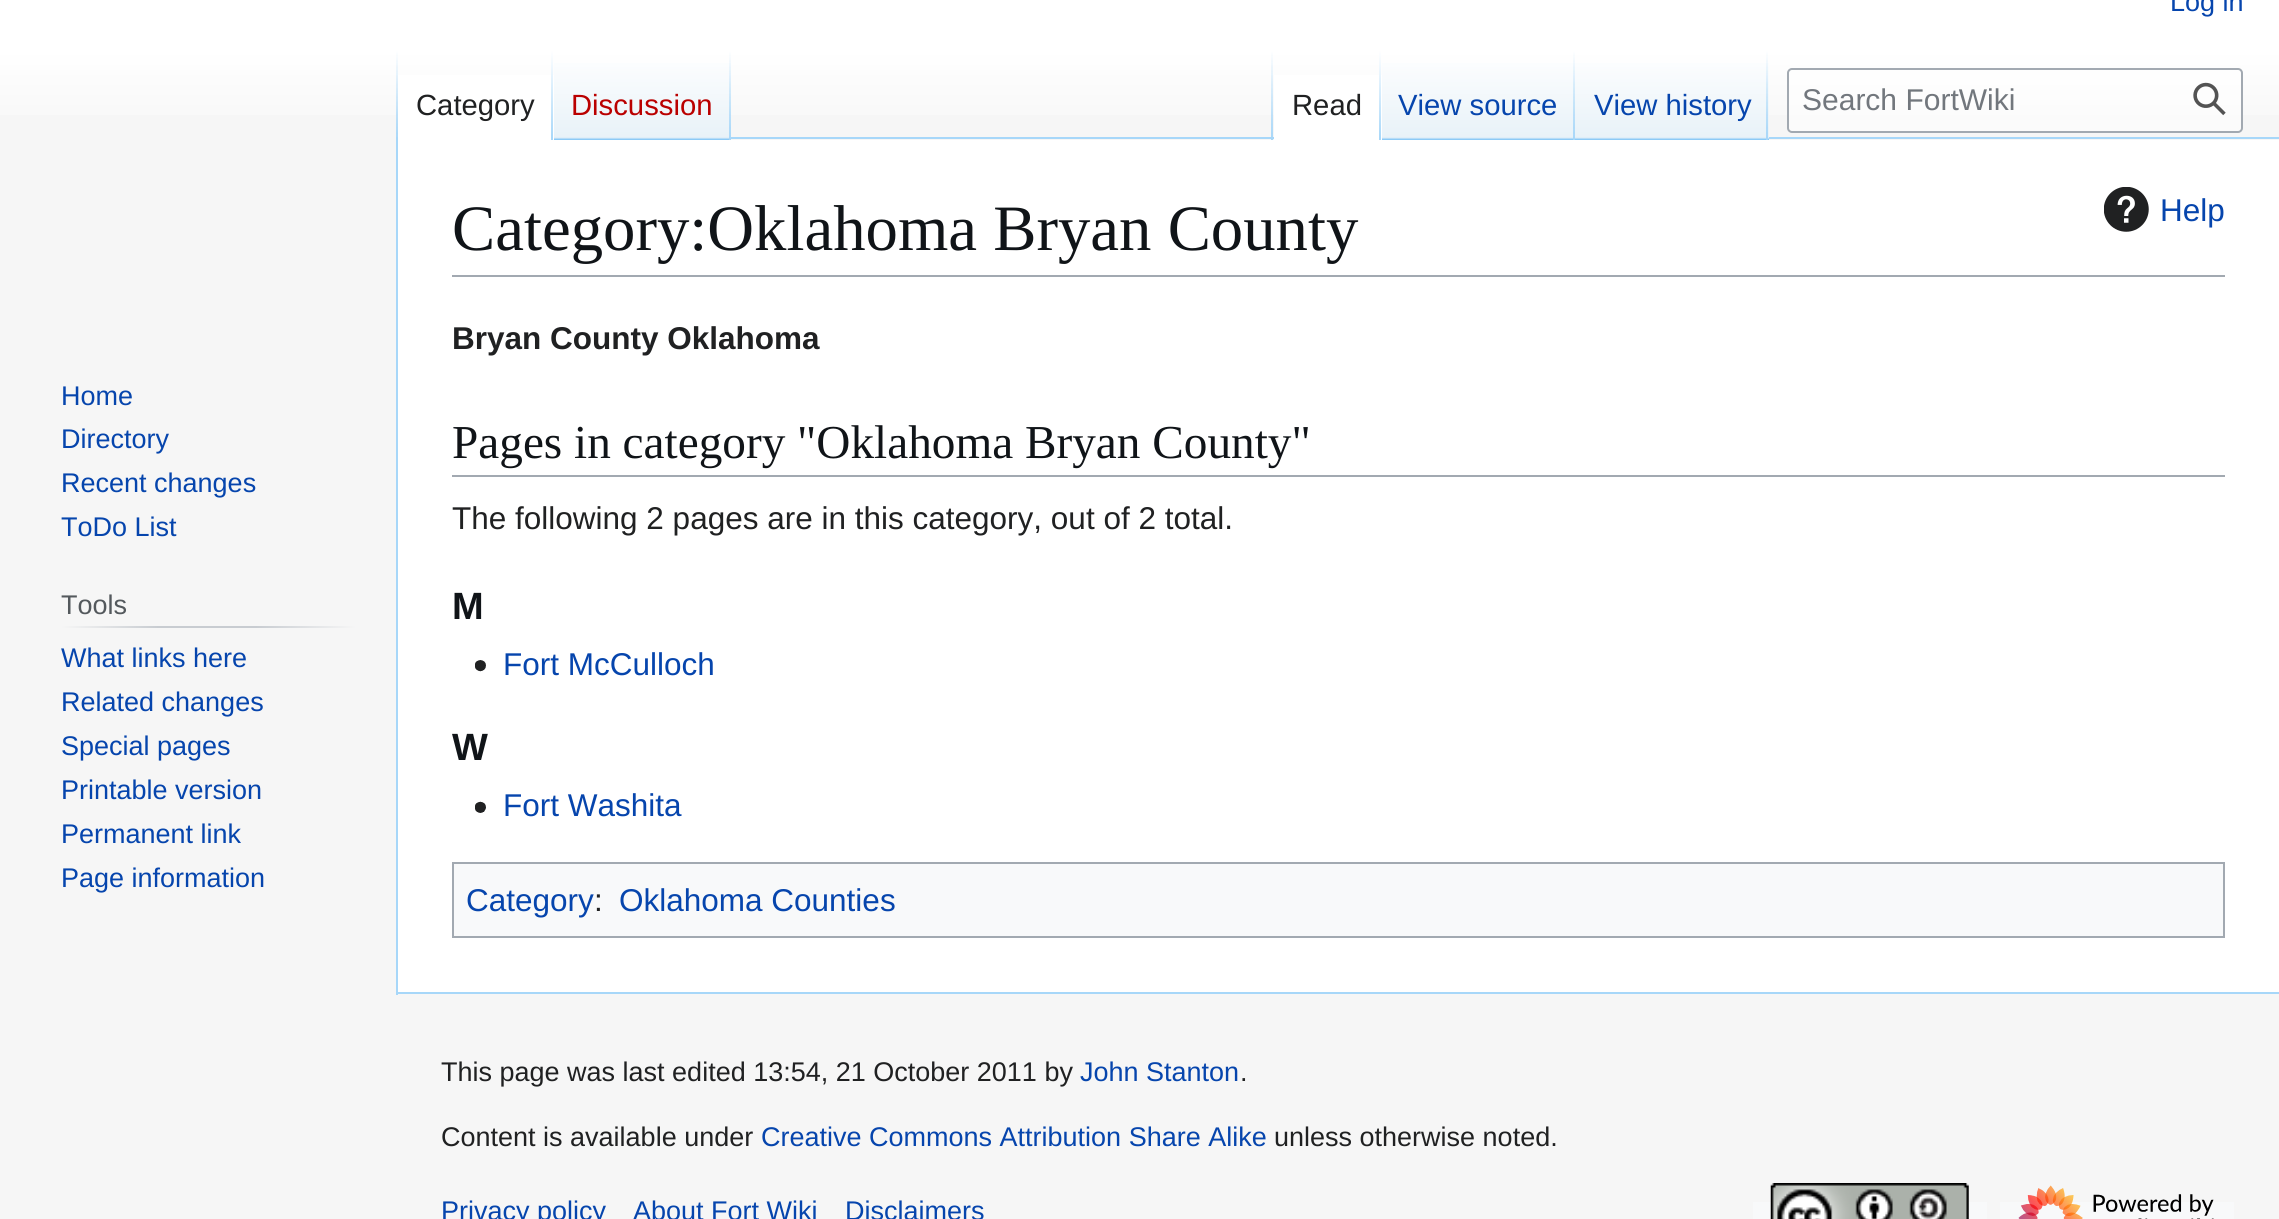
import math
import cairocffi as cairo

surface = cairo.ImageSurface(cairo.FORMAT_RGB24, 2279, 1219)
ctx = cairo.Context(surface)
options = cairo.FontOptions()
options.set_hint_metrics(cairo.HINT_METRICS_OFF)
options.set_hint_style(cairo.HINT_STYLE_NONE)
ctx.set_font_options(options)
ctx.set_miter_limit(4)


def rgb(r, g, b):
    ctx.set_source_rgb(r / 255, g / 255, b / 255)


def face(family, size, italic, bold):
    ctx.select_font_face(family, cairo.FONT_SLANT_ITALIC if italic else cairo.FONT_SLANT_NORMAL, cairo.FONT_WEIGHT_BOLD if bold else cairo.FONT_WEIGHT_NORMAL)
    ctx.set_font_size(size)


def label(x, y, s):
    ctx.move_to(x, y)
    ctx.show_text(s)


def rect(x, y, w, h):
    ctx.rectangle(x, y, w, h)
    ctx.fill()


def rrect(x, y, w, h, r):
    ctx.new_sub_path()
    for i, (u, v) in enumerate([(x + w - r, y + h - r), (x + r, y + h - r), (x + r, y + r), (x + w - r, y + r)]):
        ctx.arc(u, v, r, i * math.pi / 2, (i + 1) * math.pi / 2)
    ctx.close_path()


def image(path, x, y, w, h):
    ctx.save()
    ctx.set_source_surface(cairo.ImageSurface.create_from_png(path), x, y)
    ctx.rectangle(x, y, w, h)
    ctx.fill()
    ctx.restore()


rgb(246, 246, 246)
ctx.paint()
gradient = cairo.LinearGradient(1140, -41, 1140, 140)
gradient.add_color_stop_rgba(0.5, 1, 1, 1, 1)
gradient.add_color_stop_rgba(1, 0.965, 0.965, 0.965, 1)
ctx.set_source(gradient)
rect(0, 0, 2279, 115)
face('Liberation Sans', 27, 0, 0)
rgb(6, 69, 173)
label(2170, 11, 'Log in')
rgb(167, 215, 249)
rect(396, 992, 1883, 2)
rect(396, 137, 2, 858)
gradient = cairo.LinearGradient(397, 50, 397, 140)
gradient.add_color_stop_rgba(0, 0.655, 0.843, 0.976, 0)
gradient.add_color_stop_rgba(1, 0.655, 0.843, 0.976, 1)
ctx.set_source(gradient)
rect(396, 50, 2, 90)
rgb(255, 255, 255)
rect(398, 75, 156, 65)
gradient = cairo.LinearGradient(552, 50, 552, 140)
gradient.add_color_stop_rgba(0, 1, 1, 1, 1)
gradient.add_color_stop_rgba(1, 0.655, 0.843, 0.976, 1)
ctx.set_source(gradient)
rect(551, 50, 2, 90)
face('Liberation Sans', 29.25, 0, 0)
rgb(32, 33, 34)
label(416, 115, 'Category')
gradient = cairo.LinearGradient(642, 140, 642, 50)
gradient.add_color_stop_rgba(0, 0.467, 0.757, 0.965, 1)
gradient.add_color_stop_rgba(0.03, 0.91, 0.949, 0.973, 1)
gradient.add_color_stop_rgba(1, 1, 1, 1, 1)
ctx.set_source(gradient)
rect(554, 63, 177, 77)
gradient = cairo.LinearGradient(730, 50, 730, 140)
gradient.add_color_stop_rgba(0, 0.655, 0.843, 0.976, 0)
gradient.add_color_stop_rgba(1, 0.655, 0.843, 0.976, 1)
ctx.set_source(gradient)
rect(729, 50, 2, 90)
rgb(186, 0, 0)
label(571, 115, 'Discussion')
rgb(167, 215, 249)
rect(731, 137, 1548, 2)
gradient = cairo.LinearGradient(1272, 50, 1272, 140)
gradient.add_color_stop_rgba(0, 0.655, 0.843, 0.976, 0)
gradient.add_color_stop_rgba(1, 0.655, 0.843, 0.976, 1)
ctx.set_source(gradient)
rect(1271, 50, 2, 90)
rgb(255, 255, 255)
rect(1274, 75, 108, 65)
gradient = cairo.LinearGradient(1380, 50, 1380, 140)
gradient.add_color_stop_rgba(0, 1, 1, 1, 1)
gradient.add_color_stop_rgba(1, 0.655, 0.843, 0.976, 1)
ctx.set_source(gradient)
rect(1379, 50, 2, 90)
rgb(32, 33, 34)
label(1292, 115, 'Read')
gradient = cairo.LinearGradient(1478, 140, 1478, 50)
gradient.add_color_stop_rgba(0, 0.467, 0.757, 0.965, 1)
gradient.add_color_stop_rgba(0.03, 0.91, 0.949, 0.973, 1)
gradient.add_color_stop_rgba(1, 1, 1, 1, 1)
ctx.set_source(gradient)
rect(1382, 63, 193, 77)
gradient = cairo.LinearGradient(1574, 50, 1574, 140)
gradient.add_color_stop_rgba(0, 0.655, 0.843, 0.976, 0)
gradient.add_color_stop_rgba(1, 0.655, 0.843, 0.976, 1)
ctx.set_source(gradient)
rect(1573, 50, 2, 90)
rgb(6, 69, 173)
label(1398, 115, 'View source')
gradient = cairo.LinearGradient(1672, 140, 1672, 50)
gradient.add_color_stop_rgba(0, 0.467, 0.757, 0.965, 1)
gradient.add_color_stop_rgba(0.03, 0.91, 0.949, 0.973, 1)
gradient.add_color_stop_rgba(1, 1, 1, 1, 1)
ctx.set_source(gradient)
rect(1575, 63, 194, 77)
gradient = cairo.LinearGradient(1767, 50, 1767, 140)
gradient.add_color_stop_rgba(0, 0.655, 0.843, 0.976, 0)
gradient.add_color_stop_rgba(1, 0.655, 0.843, 0.976, 1)
ctx.set_source(gradient)
rect(1766, 50, 2, 90)
rgb(6, 69, 173)
label(1594, 115, 'View history')
ctx.set_source_rgba(1, 1, 1, 0.5)
rrect(1788, 69, 454, 63, 4)
ctx.fill_preserve()
rgb(162, 169, 177)
ctx.stroke()
face('Liberation Sans', 30, 0, 0)
rgb(114, 119, 125)
label(1802, 110, 'Search FortWiki')
image('image0.png', 2193, 82, 33, 34)
face('Liberation Sans', 27, 0, 0)
rgb(6, 69, 173)
label(61, 405, 'Home')
label(61, 448, 'Directory')
label(61, 492, 'Recent changes')
label(61, 536, 'ToDo List')
gradient = cairo.LinearGradient(61, 627, 356, 627)
gradient.add_color_stop_rgba(0, 0.965, 0.965, 0.965, 1)
gradient.add_color_stop_rgba(0.33, 0.784, 0.8, 0.82, 1)
gradient.add_color_stop_rgba(0.66, 0.784, 0.8, 0.82, 1)
gradient.add_color_stop_rgba(1, 0.965, 0.965, 0.965, 1)
ctx.set_source(gradient)
rect(61, 626, 295, 2)
rgb(84, 89, 93)
label(61, 614, 'Tools')
rgb(6, 69, 173)
label(61, 667, 'What links here')
label(61, 711, 'Related changes')
label(61, 755, 'Special pages')
label(61, 799, 'Printable version')
label(61, 843, 'Permanent link')
label(61, 887, 'Page information')
rgb(255, 255, 255)
rect(398, 140, 1881, 852)
rgb(162, 169, 177)
rect(452, 275, 1773, 2)
face('Liberation Serif', 64.75, 0, 0)
rgb(16, 20, 24)
label(452, 250, 'Category:Oklahoma Bryan County')
image('image1.png', 2104, 187, 45, 45)
face('Liberation Sans', 31.5, 0, 0)
rgb(6, 69, 173)
label(2160, 221, 'Help')
face('Liberation Sans', 31.5, 0, 1)
rgb(32, 33, 34)
label(452, 349, 'Bryan County Oklahoma')
rgb(162, 169, 177)
rect(452, 475, 1773, 2)
face('Liberation Serif', 47.25, 0, 0)
rgb(16, 20, 24)
label(452, 458, 'Pages in category "Oklahoma Bryan County"')
face('Liberation Sans', 31.5, 0, 0)
rgb(32, 33, 34)
label(452, 529, 'The following 2 pages are in this category, out of 2 total.')
face('Liberation Sans', 38, 0, 1)
rgb(16, 20, 24)
label(452, 619, 'M')
image('image2.png', 475, 660, 11, 12)
face('Liberation Sans', 31.5, 0, 0)
rgb(6, 69, 173)
label(503, 675, 'Fort McCulloch')
face('Liberation Sans', 38, 0, 1)
rgb(16, 20, 24)
label(452, 760, 'W')
image('image3.png', 475, 801, 11, 12)
face('Liberation Sans', 31.5, 0, 0)
rgb(6, 69, 173)
label(503, 816, 'Fort Washita')
rgb(248, 249, 250)
ctx.rectangle(453, 863, 1771, 74)
ctx.fill_preserve()
rgb(162, 169, 177)
ctx.stroke()
rgb(6, 69, 173)
label(466, 911, 'Category')
rgb(32, 33, 34)
label(594, 911, ':')
rgb(6, 69, 173)
label(619, 911, 'Oklahoma Counties')
face('Liberation Sans', 27, 0, 0)
rgb(32, 33, 34)
label(441, 1081, 'This page was last edited 13:54, 21 October 2011 by')
rgb(6, 69, 173)
label(1080, 1081, 'John Stanton')
rgb(32, 33, 34)
label(1240, 1081, '.')
label(441, 1146, 'Content is available under')
rgb(6, 69, 173)
label(761, 1146, 'Creative Commons Attribution Share Alike')
rgb(32, 33, 34)
label(1274, 1146, 'unless otherwise noted.')
rgb(6, 69, 173)
label(441, 1220, 'Privacy policy')
label(633, 1220, 'About Fort Wiki')
label(845, 1220, 'Disclaimers')
rgb(248, 249, 250)
rect(1753, 1202, 234, 17)
image('image4.png', 1770, 1183, 199, 36)
rect(2000, 1202, 234, 17)
image('image5.png', 2018, 1185, 196, 34)
surface.write_to_png('render.png')
